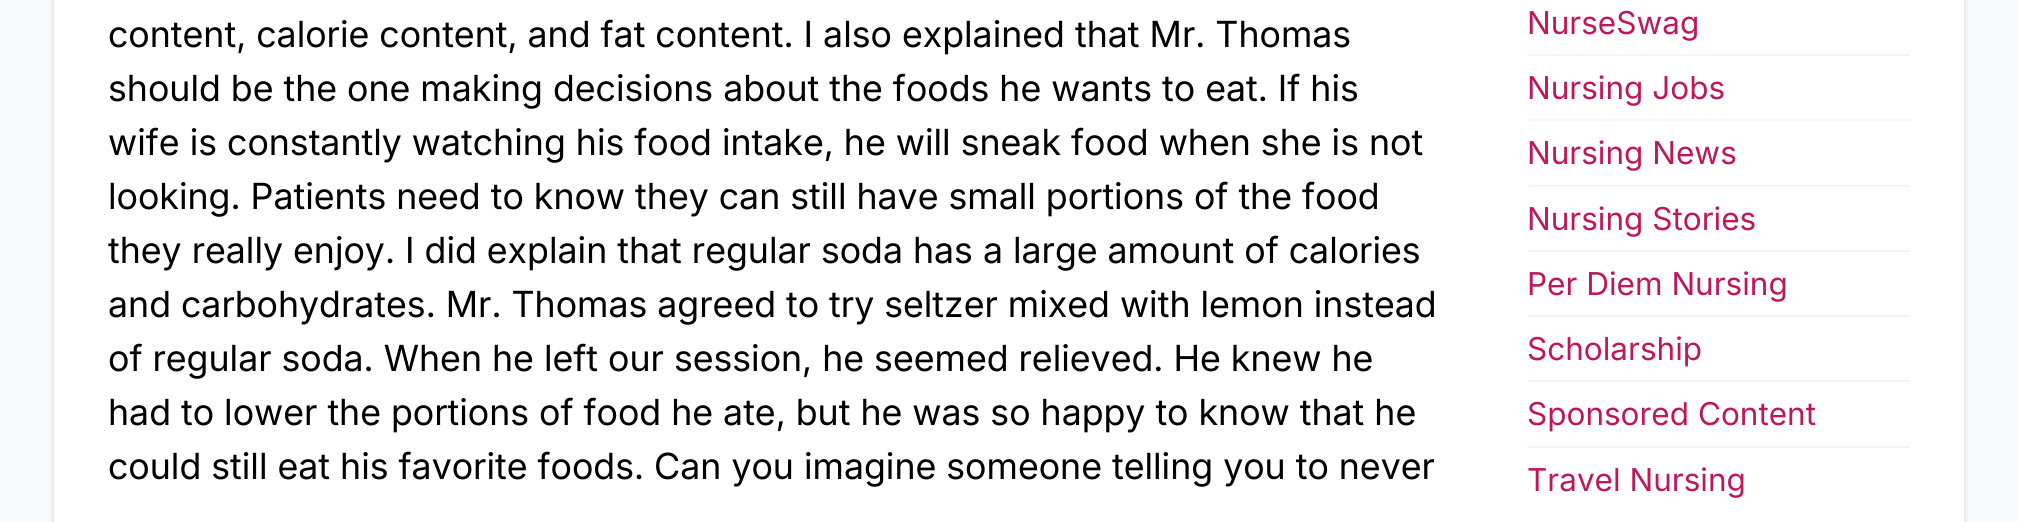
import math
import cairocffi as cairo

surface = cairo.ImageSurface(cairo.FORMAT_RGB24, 2018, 522)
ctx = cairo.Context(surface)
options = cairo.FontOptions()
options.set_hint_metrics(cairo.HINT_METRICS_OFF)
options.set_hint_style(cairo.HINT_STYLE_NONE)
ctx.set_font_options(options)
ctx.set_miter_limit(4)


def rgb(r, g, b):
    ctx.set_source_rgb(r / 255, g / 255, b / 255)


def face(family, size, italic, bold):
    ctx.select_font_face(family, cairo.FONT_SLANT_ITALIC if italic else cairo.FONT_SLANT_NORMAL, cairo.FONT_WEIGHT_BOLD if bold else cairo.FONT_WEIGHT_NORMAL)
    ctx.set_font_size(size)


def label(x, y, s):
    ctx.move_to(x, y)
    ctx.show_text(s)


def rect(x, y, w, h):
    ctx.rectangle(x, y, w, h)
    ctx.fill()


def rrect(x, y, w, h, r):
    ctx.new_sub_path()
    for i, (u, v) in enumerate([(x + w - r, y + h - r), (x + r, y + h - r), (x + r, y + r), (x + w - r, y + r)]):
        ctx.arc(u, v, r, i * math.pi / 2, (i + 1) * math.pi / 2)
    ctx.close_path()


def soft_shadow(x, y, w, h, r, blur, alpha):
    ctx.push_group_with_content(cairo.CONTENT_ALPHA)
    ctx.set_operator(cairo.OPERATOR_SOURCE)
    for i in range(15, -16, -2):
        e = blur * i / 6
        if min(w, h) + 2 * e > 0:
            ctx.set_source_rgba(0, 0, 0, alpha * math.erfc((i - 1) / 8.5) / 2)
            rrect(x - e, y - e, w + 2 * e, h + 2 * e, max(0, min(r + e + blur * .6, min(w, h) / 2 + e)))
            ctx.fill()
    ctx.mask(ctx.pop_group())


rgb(248, 250, 252)
ctx.paint()
rgb(0, 0, 0)
soft_shadow(54, -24, 1910, 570, 18, 2, 0.06)
soft_shadow(54, -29, 1910, 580, 18, 3.5, 0.1)
rgb(255, 255, 255)
rect(54, 0, 1910, 522)
face('Inter', 36, 0, 0)
rgb(0, 0, 0)
label(108, 47, 'content, calorie content, and fat content. I also explained that Mr. Thomas')
label(108, 101, 'should be the one making decisions about the foods he wants to eat. If his')
label(108, 155, 'wife is constantly watching his food intake, he will sneak food when she is not')
label(108, 209, 'looking. Patients need to know they can still have small portions of the food')
label(108, 263, 'they really enjoy. I did explain that regular soda has a large amount of calories')
label(108, 317, 'and carbohydrates. Mr. Thomas agreed to try seltzer mixed with lemon instead')
label(108, 371, 'of regular soda. When he left our session, he seemed relieved. He knew he')
label(108, 425, 'had to lower the portions of food he ate, but he was so happy to know that he')
label(108, 479, 'could still eat his favorite foods. Can you imagine someone telling you to never')
face('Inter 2', 31.5, 0, 0)
rgb(190, 24, 93)
label(1527, 34, 'NurseSwag')
rgb(241, 245, 249)
rect(1528, 54, 382, 2)
rgb(190, 24, 93)
label(1527, 99, 'Nursing Jobs')
rgb(241, 245, 249)
rect(1528, 119, 382, 2)
rgb(190, 24, 93)
label(1527, 164, 'Nursing News')
rgb(241, 245, 249)
rect(1528, 185, 382, 2)
rgb(190, 24, 93)
label(1527, 230, 'Nursing Stories')
rgb(241, 245, 249)
rect(1528, 250, 382, 2)
rgb(190, 24, 93)
label(1527, 295, 'Per Diem Nursing')
rgb(241, 245, 249)
rect(1528, 315, 382, 2)
rgb(190, 24, 93)
label(1527, 360, 'Scholarship')
rgb(241, 245, 249)
rect(1528, 380, 382, 2)
rgb(190, 24, 93)
label(1527, 425, 'Sponsored Content')
rgb(241, 245, 249)
rect(1528, 446, 382, 2)
rgb(190, 24, 93)
label(1527, 491, 'Travel Nursing')
surface.write_to_png('render.png')
